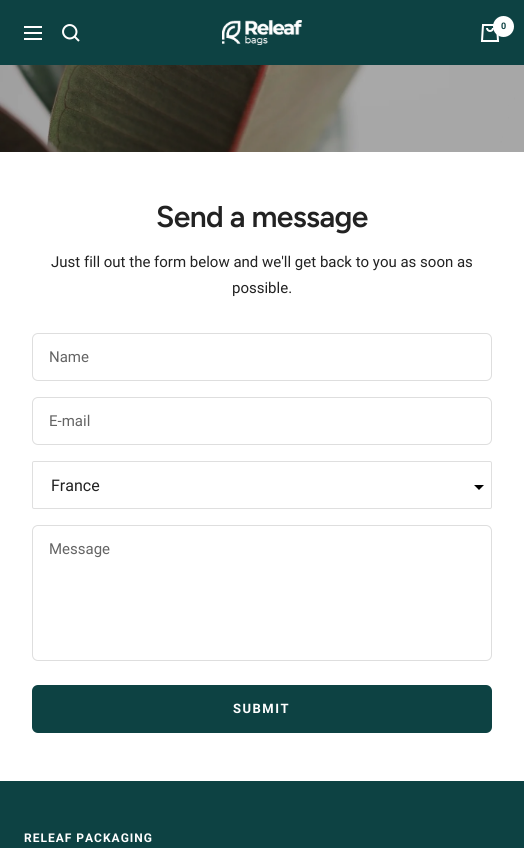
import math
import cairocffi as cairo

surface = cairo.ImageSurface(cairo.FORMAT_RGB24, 524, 848)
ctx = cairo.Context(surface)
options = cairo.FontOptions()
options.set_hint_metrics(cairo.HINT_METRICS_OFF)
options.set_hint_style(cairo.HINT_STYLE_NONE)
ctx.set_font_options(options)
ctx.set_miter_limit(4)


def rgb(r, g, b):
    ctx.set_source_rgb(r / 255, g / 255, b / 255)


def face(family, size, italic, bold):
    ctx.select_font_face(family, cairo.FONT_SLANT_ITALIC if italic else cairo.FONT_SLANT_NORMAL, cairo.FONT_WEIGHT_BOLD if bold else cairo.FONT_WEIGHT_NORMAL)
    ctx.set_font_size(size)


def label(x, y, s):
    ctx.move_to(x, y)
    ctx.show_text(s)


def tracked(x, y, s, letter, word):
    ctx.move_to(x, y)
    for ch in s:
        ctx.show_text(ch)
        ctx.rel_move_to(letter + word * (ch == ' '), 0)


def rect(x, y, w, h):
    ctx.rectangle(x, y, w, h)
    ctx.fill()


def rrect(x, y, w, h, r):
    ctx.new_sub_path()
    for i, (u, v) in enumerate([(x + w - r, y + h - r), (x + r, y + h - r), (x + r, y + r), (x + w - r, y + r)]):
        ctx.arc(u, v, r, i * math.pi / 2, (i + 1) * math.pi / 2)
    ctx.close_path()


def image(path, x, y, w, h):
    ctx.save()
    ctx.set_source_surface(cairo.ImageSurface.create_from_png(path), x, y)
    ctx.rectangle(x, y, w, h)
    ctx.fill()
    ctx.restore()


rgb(255, 255, 255)
ctx.paint()
rgb(13, 66, 67)
rect(0, 0, 524, 65)
ctx.new_path()
ctx.move_to(24, 27)
ctx.line_to(42, 27)
ctx.move_to(24, 39)
ctx.line_to(42, 39)
ctx.close_path()
ctx.move_to(24, 33)
ctx.line_to(42, 33)
ctx.close_path()
ctx.move_to(74.5, 36.5)
ctx.curve_to(80.5, 30, 71.5, 21, 65, 27)
ctx.curve_to(59, 33.5, 68, 42.5, 74.5, 36.5)
ctx.close_path()
ctx.move_to(74.5, 36.5)
ctx.line_to(79, 41)
rgb(255, 255, 255)
ctx.stroke()
image('image0.png', 222, 20, 80, 25)
image('image1.png', 480, 24, 20, 18)
ctx.arc(503.5, 26.5, 10.5, 0, 2 * math.pi)
ctx.fill()
face('Roboto', 9, 0, 1)
rgb(13, 66, 67)
label(501, 29, '0')
image('image2.png', 0, 65, 524, 87)
face('Figtree SemiBold', 30, 0, 0)
rgb(34, 34, 34)
tracked(156, 227, 'Send a message', -0.6, 0)
face('Roboto', 15, 0, 0)
label(51, 267, 'Just fill out the form below and we\'ll get back to you as soon as')
label(232, 293, 'possible.')
rrect(32.5, 333.5, 459, 47, 5.5)
rgb(222, 222, 222)
ctx.set_line_width(1)
ctx.stroke()
rgb(100, 100, 100)
label(49, 362, 'Name')
rrect(32.5, 397.5, 459, 47, 5.5)
rgb(222, 222, 222)
ctx.stroke()
rgb(100, 100, 100)
label(49, 426, 'E-mail')
rgb(0, 0, 0)
ctx.new_path()
ctx.move_to(474, 485)
ctx.line_to(479, 490)
ctx.line_to(484, 485)
ctx.close_path()
ctx.fill()
rrect(32.5, 461.5, 459, 47, 1.5)
rgb(223, 223, 223)
ctx.stroke()
face('Roboto', 16, 0, 0)
rgb(34, 34, 34)
label(51, 491, 'France')
rrect(32.5, 525.5, 459, 135, 5.5)
rgb(222, 222, 222)
ctx.stroke()
face('Roboto', 15, 0, 0)
rgb(100, 100, 100)
label(49, 554, 'Message')
rgb(13, 66, 67)
rrect(32, 685, 460, 48, 6)
ctx.fill()
face('Roboto', 13, 0, 1)
rgb(255, 255, 255)
tracked(233, 713, 'SUBMIT', 1.5, 0)
rgb(13, 66, 67)
rect(0, 781, 524, 67)
face('Roboto', 12, 0, 1)
rgb(255, 255, 255)
tracked(24, 842, 'RELEAF PACKAGING', 1, 0)
surface.write_to_png('render.png')
